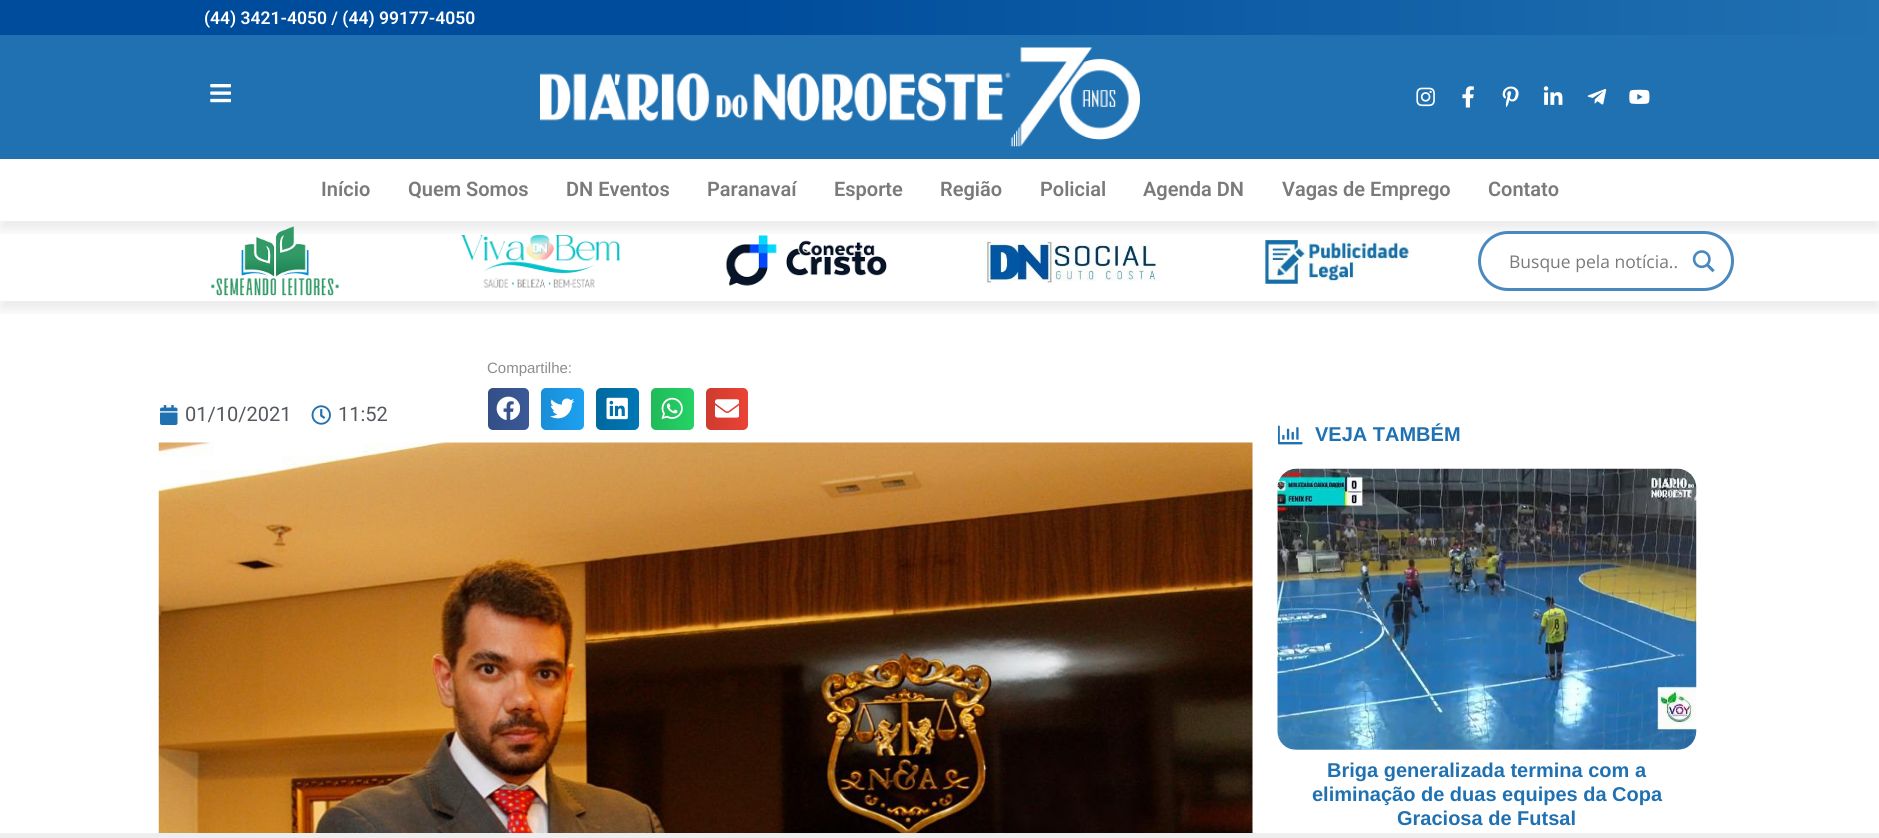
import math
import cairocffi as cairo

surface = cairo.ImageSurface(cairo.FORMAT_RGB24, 1879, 838)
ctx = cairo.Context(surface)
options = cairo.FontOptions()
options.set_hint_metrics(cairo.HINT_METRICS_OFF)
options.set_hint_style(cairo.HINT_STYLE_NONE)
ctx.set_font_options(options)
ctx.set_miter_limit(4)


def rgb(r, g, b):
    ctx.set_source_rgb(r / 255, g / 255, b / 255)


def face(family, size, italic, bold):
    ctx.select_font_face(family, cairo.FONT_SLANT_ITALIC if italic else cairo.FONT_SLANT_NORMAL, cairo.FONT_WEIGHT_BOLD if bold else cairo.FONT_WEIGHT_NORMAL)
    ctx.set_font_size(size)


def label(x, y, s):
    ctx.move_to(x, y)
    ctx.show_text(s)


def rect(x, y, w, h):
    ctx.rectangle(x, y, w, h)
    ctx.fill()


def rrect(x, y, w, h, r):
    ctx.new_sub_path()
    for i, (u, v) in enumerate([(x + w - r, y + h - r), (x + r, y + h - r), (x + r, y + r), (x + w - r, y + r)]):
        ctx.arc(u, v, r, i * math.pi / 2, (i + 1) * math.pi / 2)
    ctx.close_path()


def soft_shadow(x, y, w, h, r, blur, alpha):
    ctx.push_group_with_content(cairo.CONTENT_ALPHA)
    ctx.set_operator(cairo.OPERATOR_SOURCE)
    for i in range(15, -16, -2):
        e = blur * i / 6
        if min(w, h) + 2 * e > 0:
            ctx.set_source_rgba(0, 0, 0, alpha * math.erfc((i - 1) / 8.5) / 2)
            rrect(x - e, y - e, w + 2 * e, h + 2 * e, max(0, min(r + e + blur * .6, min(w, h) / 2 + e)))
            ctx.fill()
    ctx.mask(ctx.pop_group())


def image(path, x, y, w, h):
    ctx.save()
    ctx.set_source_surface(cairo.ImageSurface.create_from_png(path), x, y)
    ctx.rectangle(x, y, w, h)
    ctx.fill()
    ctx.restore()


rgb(255, 255, 255)
ctx.paint()
gradient = cairo.LinearGradient(0, 18, 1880, 17)
gradient.add_color_stop_rgba(0.39, 0, 0.298, 0.612, 1)
gradient.add_color_stop_rgba(1, 0.125, 0.443, 0.694, 1)
ctx.set_source(gradient)
rect(0, 0, 1879, 35)
face('Roboto SemiBold', 17.5, 0, 0)
rgb(255, 255, 255)
label(204, 24, '(44) 3421-4050 / (44) 99177-4050')
rgb(32, 113, 177)
rect(0, 35, 1879, 124)
image('image0.png', 210, 84, 21, 19)
image('image1.png', 540, 47, 600, 100)
image('image2.png', 1416, 87, 19, 20)
image('image3.png', 1462, 86, 12, 22)
image('image4.png', 1502, 86, 17, 22)
image('image5.png', 1543, 86, 20, 19)
image('image6.png', 1587, 88, 20, 17)
image('image7.png', 1629, 89, 21, 15)
ctx.save()
ctx.rectangle(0, 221, 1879, 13)
ctx.clip()
rgb(0, 0, 0)
soft_shadow(0, 168, 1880, 62, 0, 6, 0.08)
ctx.restore()
face('Roboto SemiBold', 20, 0, 0)
rgb(122, 122, 122)
label(321, 196, 'Início')
label(408, 196, 'Quem Somos')
label(566, 196, 'DN Eventos')
label(707, 196, 'Paranavaí')
label(834, 196, 'Esporte')
label(940, 196, 'Região')
label(1040, 196, 'Policial')
label(1143, 196, 'Agenda DN')
label(1282, 196, 'Vagas de Emprego')
label(1488, 196, 'Contato')
ctx.save()
ctx.rectangle(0, 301, 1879, 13)
ctx.clip()
rgb(0, 0, 0)
soft_shadow(0, 230, 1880, 80, 0, 6, 0.08)
ctx.restore()
image('image8.png', 210, 226, 129, 70)
image('image9.png', 461, 235, 159, 53)
image('image10.png', 725, 235, 162, 51)
image('image11.png', 984, 240, 175, 44)
image('image12.png', 1264, 240, 148, 44)
rgb(255, 255, 255)
rrect(1479.5, 232.5, 253, 57, 28.5)
ctx.fill_preserve()
rgb(74, 137, 191)
ctx.set_line_width(3)
ctx.stroke()
face('Open Sans', 17.5, 0, 0)
rgb(122, 122, 122)
label(1509, 268, 'Busque pela notícia..')
image('image13.png', 1692, 250, 23, 23)
face('Liberation Sans', 15, 0, 0)
rgb(141, 141, 141)
label(487, 373, 'Compartilhe:')
rgb(59, 89, 152)
rrect(488, 388, 41, 42, 5)
ctx.fill()
gradient = cairo.LinearGradient(488, 409, 529, 409)
gradient.add_color_stop_rgba(0, 0, 0, 0, 0.12)
gradient.add_color_stop_rgba(1, 0, 0, 0, 0)
ctx.set_source(gradient)
rrect(488, 388, 41, 42, 5)
ctx.fill()
image('image14.png', 496, 396, 24, 24)
rgb(29, 161, 242)
rrect(541, 388, 43, 42, 5)
ctx.fill()
gradient = cairo.LinearGradient(541, 409, 584, 409)
gradient.add_color_stop_rgba(0, 0, 0, 0, 0.12)
gradient.add_color_stop_rgba(1, 0, 0, 0, 0)
ctx.set_source(gradient)
rrect(541, 388, 43, 42, 5)
ctx.fill()
image('image15.png', 550, 398, 25, 21)
rgb(0, 119, 181)
rrect(596, 388, 43, 42, 5)
ctx.fill()
gradient = cairo.LinearGradient(596, 409, 639, 409)
gradient.add_color_stop_rgba(0, 0, 0, 0, 0.12)
gradient.add_color_stop_rgba(1, 0, 0, 0, 0)
ctx.set_source(gradient)
rrect(596, 388, 43, 42, 5)
ctx.fill()
image('image16.png', 606, 397, 22, 23)
rgb(37, 211, 102)
rrect(651, 388, 43, 42, 5)
ctx.fill()
gradient = cairo.LinearGradient(651, 409, 694, 409)
gradient.add_color_stop_rgba(0, 0, 0, 0, 0.12)
gradient.add_color_stop_rgba(1, 0, 0, 0, 0)
ctx.set_source(gradient)
rrect(651, 388, 43, 42, 5)
ctx.fill()
image('image17.png', 661, 397, 22, 22)
rgb(234, 67, 53)
rrect(706, 388, 42, 42, 5)
ctx.fill()
gradient = cairo.LinearGradient(706, 409, 748, 409)
gradient.add_color_stop_rgba(0, 0, 0, 0, 0.12)
gradient.add_color_stop_rgba(1, 0, 0, 0, 0)
ctx.set_source(gradient)
rrect(706, 388, 42, 42, 5)
ctx.fill()
image('image18.png', 715, 399, 24, 19)
image('image19.png', 160, 405, 18, 20)
face('Roboto', 20, 0, 0)
rgb(84, 89, 95)
label(185, 421, '01/10/2021')
image('image20.png', 311, 405, 20, 20)
label(338, 421, '11:52')
image('image21.png', 158, 442, 1095, 391)
rgb(238, 238, 238)
rect(0, 833, 1879, 5)
image('image22.png', 1278, 425, 25, 20)
face('Liberation Sans', 20, 0, 1)
rgb(32, 113, 177)
label(1315, 441, 'VEJA TAMBÉM')
image('image23.png', 1277, 468, 420, 282)
label(1327, 777, 'Briga generalizada termina com a')
label(1312, 801, 'eliminação de duas equipes da Copa')
label(1397, 825, 'Graciosa de Futsal')
surface.write_to_png('render.png')
